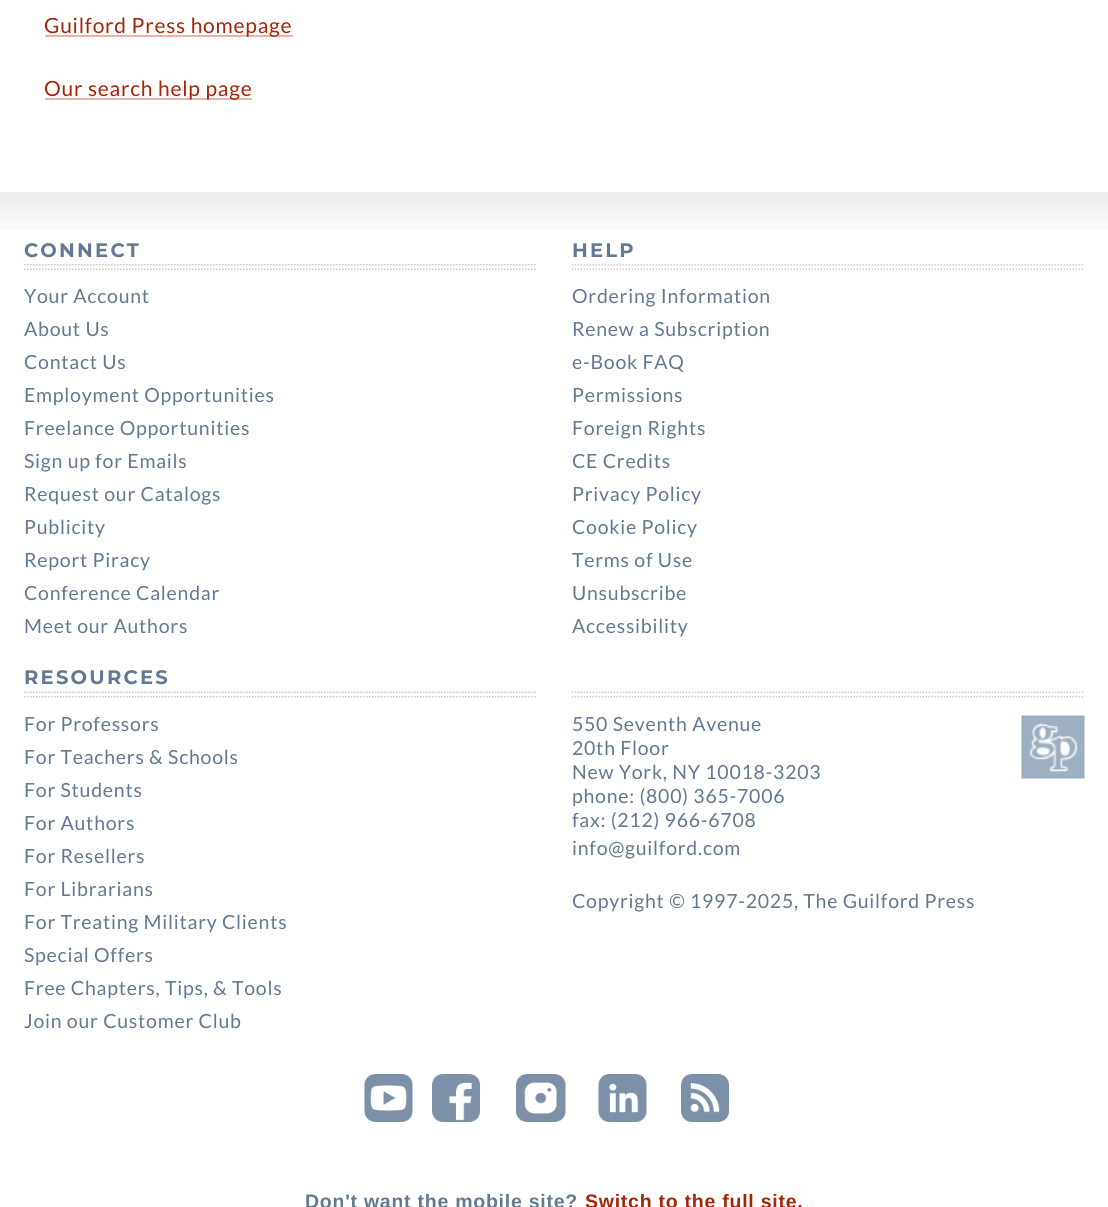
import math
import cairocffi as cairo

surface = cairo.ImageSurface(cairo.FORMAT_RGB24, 1108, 1207)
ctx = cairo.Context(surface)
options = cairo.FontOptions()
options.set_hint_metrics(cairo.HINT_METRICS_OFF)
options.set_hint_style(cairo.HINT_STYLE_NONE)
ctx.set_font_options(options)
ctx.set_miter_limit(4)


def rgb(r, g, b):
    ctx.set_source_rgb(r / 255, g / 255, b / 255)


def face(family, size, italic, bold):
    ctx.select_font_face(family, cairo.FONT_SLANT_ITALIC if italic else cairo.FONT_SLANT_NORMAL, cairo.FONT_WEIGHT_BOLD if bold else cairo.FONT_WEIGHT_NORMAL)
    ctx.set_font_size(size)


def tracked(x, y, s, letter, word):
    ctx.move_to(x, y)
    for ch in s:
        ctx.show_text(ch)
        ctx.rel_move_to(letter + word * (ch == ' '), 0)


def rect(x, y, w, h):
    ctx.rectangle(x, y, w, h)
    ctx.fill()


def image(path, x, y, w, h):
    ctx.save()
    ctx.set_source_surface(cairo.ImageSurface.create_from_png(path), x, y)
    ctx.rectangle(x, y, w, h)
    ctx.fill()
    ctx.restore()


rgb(255, 255, 255)
ctx.paint()
rgb(232, 180, 168)
rect(45, 35, 248, 2)
face('Lato', 21, 0, 0)
rgb(164, 38, 9)
tracked(44, 33, 'Guilford Press homepage', 0.75, 0)
rgb(232, 180, 168)
rect(45, 98, 207, 2)
rgb(164, 38, 9)
tracked(44, 96, 'Our search help page', 0.75, 0)
image('image0.png', 0, 192, 1108, 38)
image('image1.png', 24, 264, 512, 6)
face('Montserrat', 19.5, 0, 1)
rgb(98, 120, 147)
tracked(24, 257, 'CONNECT', 2.25, 0)
face('Lato', 19.5, 0, 0)
tracked(24, 303, 'Your Account', 0.75, 0)
tracked(24, 336, 'About Us', 0.75, 0)
tracked(24, 369, 'Contact Us', 0.75, 0)
tracked(24, 402, 'Employment Opportunities', 0.75, 0)
tracked(24, 435, 'Freelance Opportunities', 0.75, 0)
tracked(24, 468, 'Sign up for Emails', 0.75, 0)
tracked(24, 501, 'Request our Catalogs', 0.75, 0)
tracked(24, 534, 'Publicity', 0.75, 0)
tracked(24, 567, 'Report Piracy', 0.75, 0)
tracked(24, 600, 'Conference Calendar', 0.75, 0)
tracked(24, 633, 'Meet our Authors', 0.75, 0)
image('image2.png', 571, 264, 514, 6)
face('Montserrat', 19.5, 0, 1)
tracked(572, 257, 'HELP', 2.25, 0)
face('Lato', 19.5, 0, 0)
tracked(572, 303, 'Ordering Information', 0.75, 0)
tracked(572, 336, 'Renew a Subscription', 0.75, 0)
tracked(572, 369, 'e-Book FAQ', 0.75, 0)
tracked(572, 402, 'Permissions', 0.75, 0)
tracked(572, 435, 'Foreign Rights', 0.75, 0)
tracked(572, 468, 'CE Credits', 0.75, 0)
tracked(572, 501, 'Privacy Policy', 0.75, 0)
tracked(572, 534, 'Cookie Policy', 0.75, 0)
tracked(572, 567, 'Terms of Use', 0.75, 0)
tracked(572, 600, 'Unsubscribe', 0.75, 0)
tracked(572, 633, 'Accessibility', 0.75, 0)
image('image3.png', 24, 691, 512, 7)
face('Montserrat', 19.5, 0, 1)
tracked(24, 684, 'RESOURCES', 2.25, 0)
face('Lato', 19.5, 0, 0)
tracked(24, 731, 'For Professors', 0.75, 0)
tracked(24, 764, 'For Teachers & Schools', 0.75, 0)
tracked(24, 797, 'For Students', 0.75, 0)
tracked(24, 830, 'For Authors', 0.75, 0)
tracked(24, 863, 'For Resellers', 0.75, 0)
tracked(24, 896, 'For Librarians', 0.75, 0)
tracked(24, 929, 'For Treating Military Clients', 0.75, 0)
tracked(24, 962, 'Special Offers', 0.75, 0)
tracked(24, 995, 'Free Chapters, Tips, & Tools', 0.75, 0)
tracked(24, 1028, 'Join our Customer Club', 0.75, 0)
image('image4.png', 571, 691, 514, 7)
image('image5.png', 1021, 715, 64, 64)
tracked(572, 731, '550 Seventh Avenue', 0.75, 0)
tracked(572, 755, '20th Floor', 0.75, 0)
tracked(572, 779, 'New York, NY 10018-3203', 0.75, 0)
tracked(572, 803, 'phone: (800) 365-7006', 0.75, 0)
tracked(572, 827, 'fax: (212) 966-6708', 0.75, 0)
tracked(572, 855, 'info@guilford.com', 0.75, 0)
tracked(572, 908, 'Copyright © 1997-2025, The Guilford Press', 0.75, 0)
image('image6.png', 364, 1074, 49, 48)
image('image7.png', 432, 1074, 48, 48)
image('image8.png', 516, 1074, 50, 48)
image('image9.png', 598, 1074, 49, 48)
image('image10.png', 681, 1074, 48, 48)
face('Liberation Sans', 19.5, 0, 1)
tracked(305, 1208, 'Don\'t want the mobile site?', 0.75, 0)
rgb(164, 38, 9)
tracked(585, 1208, 'Switch to the full site.', 0.75, 0)
surface.write_to_png('render.png')
